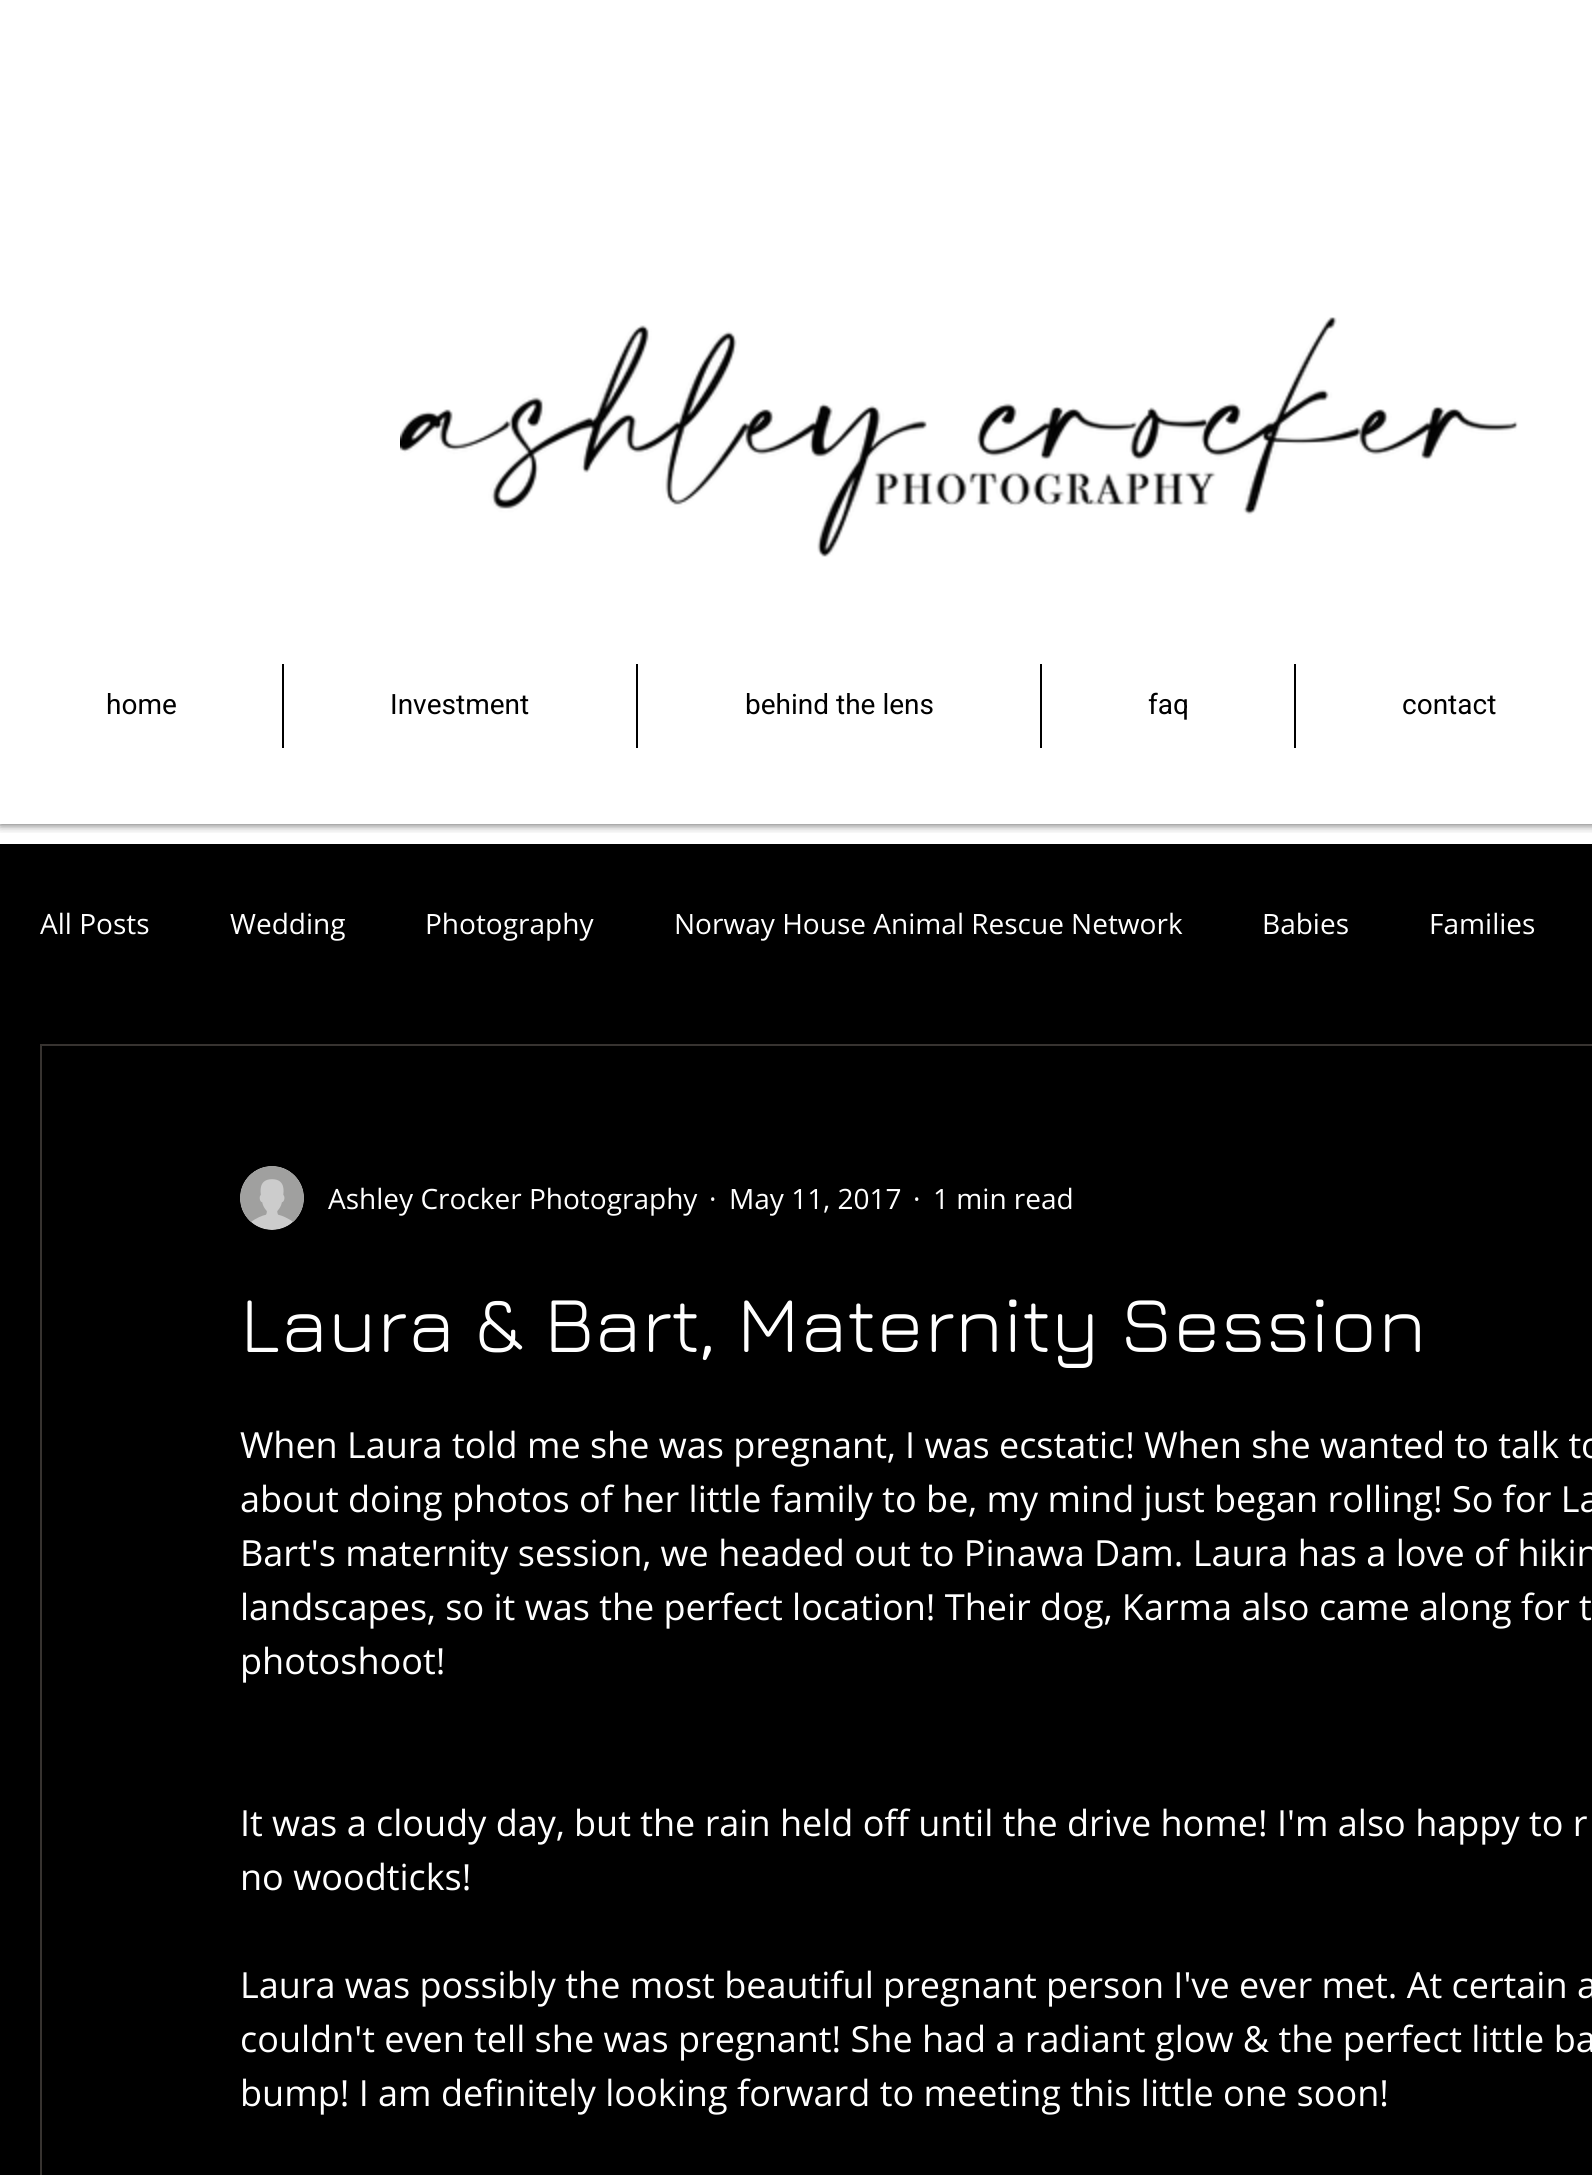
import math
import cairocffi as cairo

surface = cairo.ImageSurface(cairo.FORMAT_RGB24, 1592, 2175)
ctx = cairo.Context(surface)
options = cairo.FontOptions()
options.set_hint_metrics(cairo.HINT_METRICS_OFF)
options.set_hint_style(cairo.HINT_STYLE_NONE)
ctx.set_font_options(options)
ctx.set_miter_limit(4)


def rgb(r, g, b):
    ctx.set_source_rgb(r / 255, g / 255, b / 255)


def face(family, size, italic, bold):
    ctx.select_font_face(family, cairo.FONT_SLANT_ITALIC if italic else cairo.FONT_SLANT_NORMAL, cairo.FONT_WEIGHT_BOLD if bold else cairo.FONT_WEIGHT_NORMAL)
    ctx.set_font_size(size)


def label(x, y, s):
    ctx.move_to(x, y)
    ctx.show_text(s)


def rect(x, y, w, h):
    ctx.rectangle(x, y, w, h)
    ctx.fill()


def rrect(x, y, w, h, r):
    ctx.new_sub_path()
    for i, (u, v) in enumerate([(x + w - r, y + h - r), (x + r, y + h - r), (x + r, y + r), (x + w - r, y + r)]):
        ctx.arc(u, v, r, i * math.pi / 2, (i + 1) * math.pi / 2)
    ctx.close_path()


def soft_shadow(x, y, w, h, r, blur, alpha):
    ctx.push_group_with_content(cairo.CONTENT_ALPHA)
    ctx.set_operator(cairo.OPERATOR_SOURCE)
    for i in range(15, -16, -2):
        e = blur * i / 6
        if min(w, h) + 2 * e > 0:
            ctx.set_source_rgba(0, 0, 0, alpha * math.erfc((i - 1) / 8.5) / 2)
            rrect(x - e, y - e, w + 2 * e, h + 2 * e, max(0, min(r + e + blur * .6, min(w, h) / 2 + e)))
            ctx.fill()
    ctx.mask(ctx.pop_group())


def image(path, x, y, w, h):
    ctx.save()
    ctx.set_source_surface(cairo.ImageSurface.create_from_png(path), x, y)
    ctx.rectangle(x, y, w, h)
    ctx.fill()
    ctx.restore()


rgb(255, 255, 255)
ctx.paint()
ctx.save()
ctx.rectangle(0, 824, 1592, 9)
ctx.clip()
rgb(0, 0, 0)
soft_shadow(0, 0, 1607, 824, 0, 5, 0.7)
ctx.restore()
image('image0.png', 400, 317, 1118, 240)
face('Heebo', 28, 0, 0)
rgb(0, 0, 0)
label(106, 714, 'home')
rect(282, 664, 2, 84)
label(390, 714, 'Investment')
rect(636, 664, 2, 84)
label(745, 714, 'behind the lens')
rect(1040, 664, 2, 84)
label(1148, 714, 'faq')
rect(1294, 664, 2, 84)
label(1402, 714, 'contact')
rect(0, 844, 1592, 1331)
face('Open Sans', 28, 0, 0)
rgb(255, 255, 255)
label(40, 934, 'All Posts')
label(230, 934, 'Wedding')
label(425, 934, 'Photography')
label(674, 934, 'Norway House Animal Rescue Network')
label(1262, 934, 'Babies')
label(1429, 934, 'Families')
ctx.rectangle(41, 1045, 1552, 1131)
rgb(55, 51, 48)
ctx.stroke()
image('image1.png', 240, 1166, 64, 64)
rgb(255, 255, 255)
label(328, 1209, 'Ashley Crocker Photography')
label(709, 1209, '·')
label(729, 1209, 'May 11, 2017')
label(913, 1209, '·')
label(933, 1209, '1 min read')
face('Jura', 80, 0, 0)
label(240, 1352, 'Laura & Bart, Maternity Session')
face('Open Sans', 36, 0, 0)
label(240, 1458, 'When Laura told me she was pregnant, I was ecstatic! When she wanted to talk to')
label(240, 1512, 'about doing photos of her little family to be, my mind just began rolling! So for La')
label(240, 1566, 'Bart\'s maternity session, we headed out to Pinawa Dam. Laura has a love of hikin')
label(240, 1620, 'landscapes, so it was the perfect location! Their dog, Karma also came along for t')
label(240, 1674, 'photoshoot!')
label(240, 1836, 'It was a cloudy day, but the rain held off until the drive home! I\'m also happy to r')
label(240, 1890, 'no woodticks!')
label(240, 1998, 'Laura was possibly the most beautiful pregnant person I\'ve ever met. At certain a')
label(240, 2052, 'couldn\'t even tell she was pregnant! She had a radiant glow & the perfect little ba')
label(240, 2106, 'bump! I am definitely looking forward to meeting this little one soon!')
surface.write_to_png('render.png')
